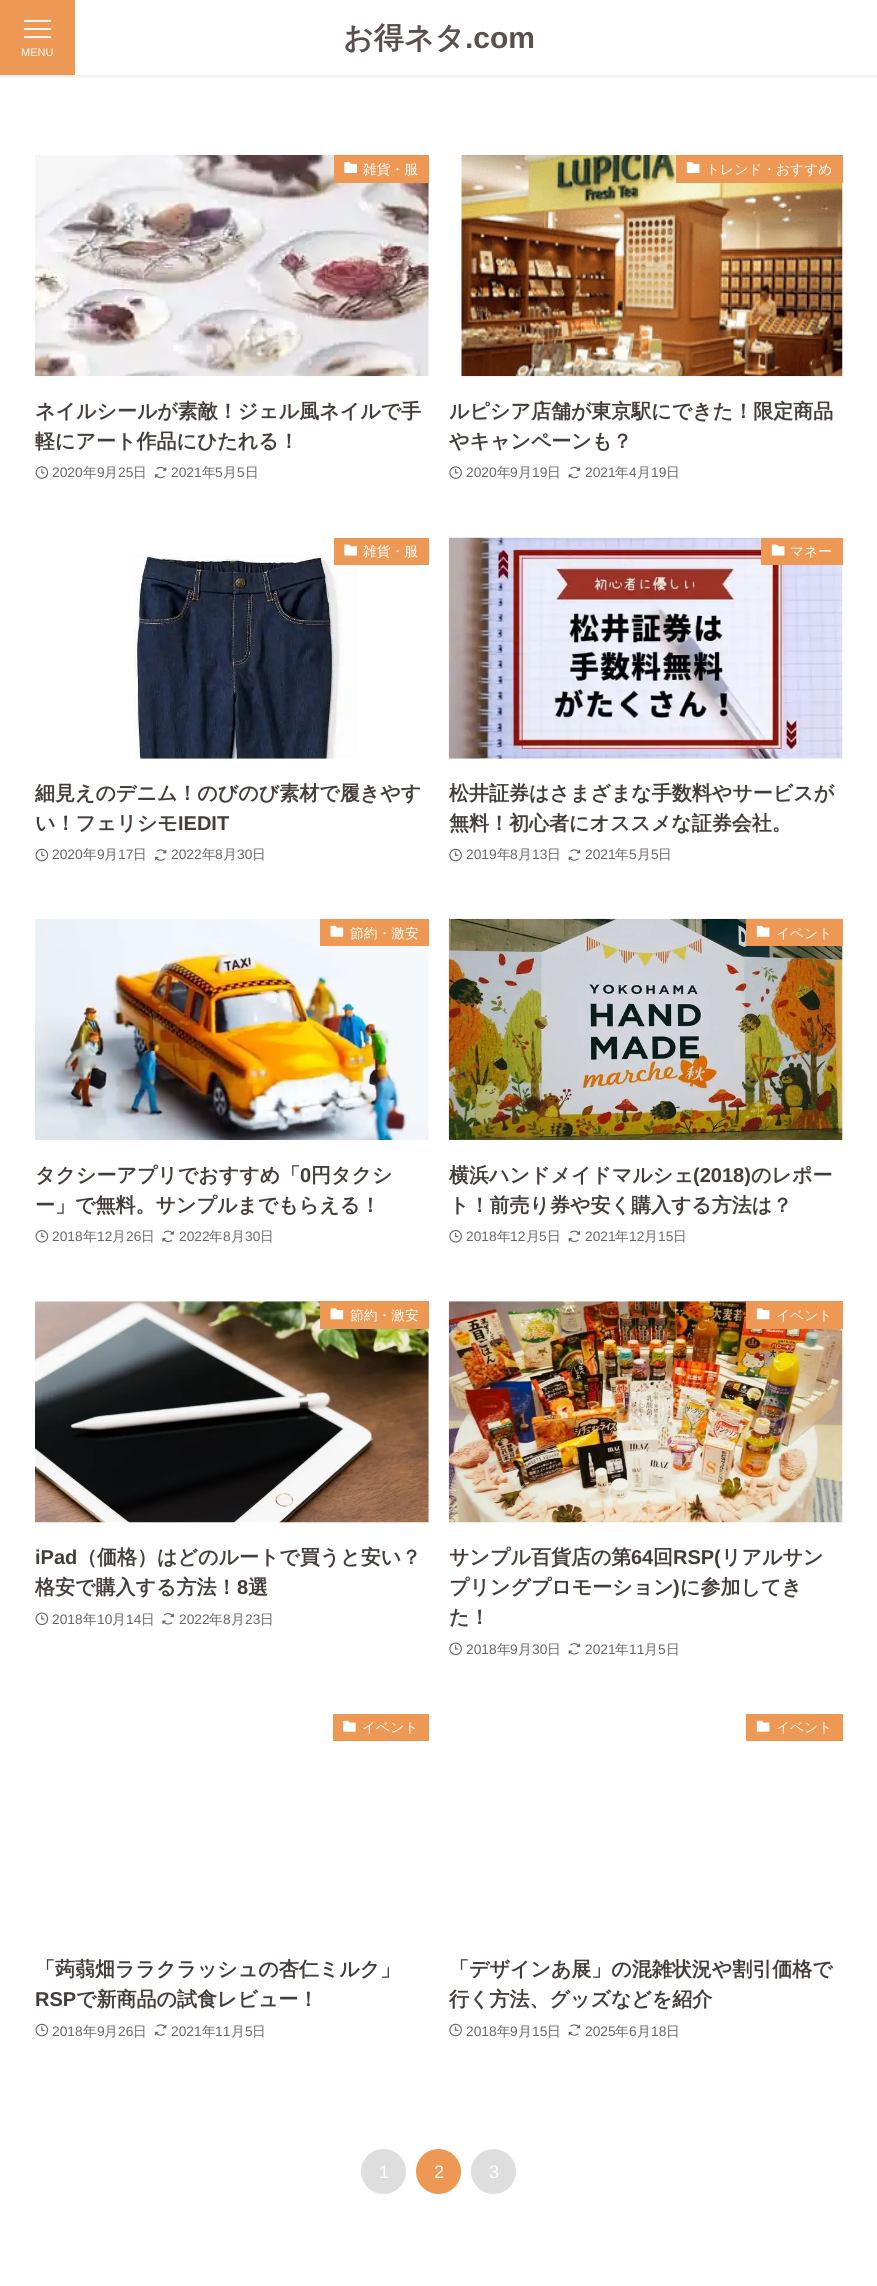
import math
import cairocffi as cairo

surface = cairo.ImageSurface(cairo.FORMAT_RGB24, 877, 2286)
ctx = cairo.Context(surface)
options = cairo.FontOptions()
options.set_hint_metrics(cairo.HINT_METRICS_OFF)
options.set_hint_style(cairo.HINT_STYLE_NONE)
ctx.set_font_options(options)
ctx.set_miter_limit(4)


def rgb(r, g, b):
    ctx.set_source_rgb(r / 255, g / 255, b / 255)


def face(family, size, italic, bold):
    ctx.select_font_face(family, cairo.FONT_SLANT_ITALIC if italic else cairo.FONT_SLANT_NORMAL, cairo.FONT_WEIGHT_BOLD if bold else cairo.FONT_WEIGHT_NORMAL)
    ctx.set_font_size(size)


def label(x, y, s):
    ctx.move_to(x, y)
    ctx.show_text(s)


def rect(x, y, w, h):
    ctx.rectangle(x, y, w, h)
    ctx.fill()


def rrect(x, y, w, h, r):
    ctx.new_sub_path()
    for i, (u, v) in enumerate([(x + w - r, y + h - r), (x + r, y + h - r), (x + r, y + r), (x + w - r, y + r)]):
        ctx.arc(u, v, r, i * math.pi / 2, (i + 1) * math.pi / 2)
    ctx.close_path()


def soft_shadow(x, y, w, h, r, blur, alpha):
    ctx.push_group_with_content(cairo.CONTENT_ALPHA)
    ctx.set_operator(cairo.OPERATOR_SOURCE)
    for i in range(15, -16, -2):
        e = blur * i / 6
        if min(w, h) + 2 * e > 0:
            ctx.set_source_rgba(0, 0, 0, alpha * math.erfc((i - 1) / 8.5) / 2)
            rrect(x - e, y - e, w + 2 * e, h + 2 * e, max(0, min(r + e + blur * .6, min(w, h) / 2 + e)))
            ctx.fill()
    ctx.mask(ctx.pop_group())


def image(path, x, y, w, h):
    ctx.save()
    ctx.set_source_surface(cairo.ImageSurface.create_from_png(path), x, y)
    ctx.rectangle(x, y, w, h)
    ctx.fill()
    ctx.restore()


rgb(255, 255, 255)
ctx.paint()
ctx.save()
ctx.rectangle(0, 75, 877, 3)
ctx.clip()
rgb(0, 0, 0)
soft_shadow(0, 1, 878, 75, 0, 2.5, 0.12)
ctx.restore()
rgb(237, 153, 85)
rect(0, 0, 75, 75)
image('image0.png', 23, 19, 29, 20)
face('Liberation Sans', 11, 0, 0)
rgb(255, 255, 255)
label(21, 56, 'MENU')
face('WenQuanYi Zen Hei', 30, 0, 1)
rgb(89, 80, 78)
label(343, 48, 'お得ネタ')
face('Liberation Sans', 30, 0, 1)
label(465, 48, '.com')
image('image1.png', 35, 155, 394, 222)
rgb(237, 153, 85)
rect(334, 155, 95, 28)
image('image2.png', 344, 162, 13, 11)
face('WenQuanYi Zen Hei Medium', 13.75, 0, 0)
rgb(255, 255, 255)
label(363, 174, '雑貨・服')
face('WenQuanYi Zen Hei', 20, 0, 1)
rgb(68, 61, 59)
label(35, 418, 'ネイルシールが素敵！ジェル風ネイルで手')
label(35, 448, '軽にアート作品にひたれる！')
image('image3.png', 35, 466, 14, 13)
face('Liberation Sans', 13.75, 0, 0)
rgb(105, 100, 98)
label(52, 477, '2020')
face('WenQuanYi Zen Hei Medium', 13.75, 0, 0)
label(83, 477, '年')
face('Liberation Sans', 13.75, 0, 0)
label(97, 477, '9')
face('WenQuanYi Zen Hei Medium', 13.75, 0, 0)
label(104, 477, '月')
face('Liberation Sans', 13.75, 0, 0)
label(118, 477, '25')
face('WenQuanYi Zen Hei Medium', 13.75, 0, 0)
label(133, 477, '日')
image('image4.png', 154, 466, 13, 13)
face('Liberation Sans', 13.75, 0, 0)
label(171, 477, '2021')
face('WenQuanYi Zen Hei Medium', 13.75, 0, 0)
label(202, 477, '年')
face('Liberation Sans', 13.75, 0, 0)
label(215, 477, '5')
face('WenQuanYi Zen Hei Medium', 13.75, 0, 0)
label(223, 477, '月')
face('Liberation Sans', 13.75, 0, 0)
label(237, 477, '5')
face('WenQuanYi Zen Hei Medium', 13.75, 0, 0)
label(245, 477, '日')
image('image5.png', 461, 155, 382, 222)
rgb(237, 153, 85)
rect(676, 155, 167, 28)
image('image6.png', 686, 162, 14, 11)
rgb(255, 255, 255)
label(706, 174, 'トレンド・おすすめ')
face('WenQuanYi Zen Hei', 20, 0, 1)
rgb(68, 61, 59)
label(449, 418, 'ルピシア店舗が東京駅にできた！限定商品')
label(449, 448, 'やキャンペーンも？')
image('image7.png', 449, 466, 13, 13)
face('Liberation Sans', 13.75, 0, 0)
rgb(105, 100, 98)
label(466, 477, '2020')
face('WenQuanYi Zen Hei Medium', 13.75, 0, 0)
label(497, 477, '年')
face('Liberation Sans', 13.75, 0, 0)
label(510, 477, '9')
face('WenQuanYi Zen Hei Medium', 13.75, 0, 0)
label(518, 477, '月')
face('Liberation Sans', 13.75, 0, 0)
label(532, 477, '19')
face('WenQuanYi Zen Hei Medium', 13.75, 0, 0)
label(547, 477, '日')
image('image8.png', 568, 466, 13, 13)
face('Liberation Sans', 13.75, 0, 0)
label(585, 477, '2021')
face('WenQuanYi Zen Hei Medium', 13.75, 0, 0)
label(615, 477, '年')
face('Liberation Sans', 13.75, 0, 0)
label(629, 477, '4')
face('WenQuanYi Zen Hei Medium', 13.75, 0, 0)
label(637, 477, '月')
face('Liberation Sans', 13.75, 0, 0)
label(651, 477, '19')
face('WenQuanYi Zen Hei Medium', 13.75, 0, 0)
label(666, 477, '日')
image('image10.png', 134, 554, 224, 205)
rgb(237, 153, 85)
rect(334, 538, 95, 27)
image('image9.png', 344, 544, 13, 12)
rgb(255, 255, 255)
label(363, 556, '雑貨・服')
face('WenQuanYi Zen Hei', 20, 0, 1)
rgb(68, 61, 59)
label(35, 800, '細見えのデニム！のびのび素材で履きやす')
label(35, 830, 'い！フェリシモ')
face('Liberation Sans', 20, 0, 1)
label(178, 830, 'IEDIT')
image('image11.png', 35, 848, 14, 14)
face('Liberation Sans', 13.75, 0, 0)
rgb(105, 100, 98)
label(52, 859, '2020')
face('WenQuanYi Zen Hei Medium', 13.75, 0, 0)
label(83, 859, '年')
face('Liberation Sans', 13.75, 0, 0)
label(97, 859, '9')
face('WenQuanYi Zen Hei Medium', 13.75, 0, 0)
label(104, 859, '月')
face('Liberation Sans', 13.75, 0, 0)
label(118, 859, '17')
face('WenQuanYi Zen Hei Medium', 13.75, 0, 0)
label(133, 859, '日')
image('image12.png', 154, 849, 13, 12)
face('Liberation Sans', 13.75, 0, 0)
label(171, 859, '2022')
face('WenQuanYi Zen Hei Medium', 13.75, 0, 0)
label(202, 859, '年')
face('Liberation Sans', 13.75, 0, 0)
label(215, 859, '8')
face('WenQuanYi Zen Hei Medium', 13.75, 0, 0)
label(223, 859, '月')
face('Liberation Sans', 13.75, 0, 0)
label(237, 859, '30')
face('WenQuanYi Zen Hei Medium', 13.75, 0, 0)
label(252, 859, '日')
image('image13.png', 448, 537, 395, 222)
rgb(237, 153, 85)
rect(761, 538, 82, 27)
image('image14.png', 771, 544, 14, 12)
rgb(255, 255, 255)
label(790, 556, 'マネー')
face('WenQuanYi Zen Hei', 20, 0, 1)
rgb(68, 61, 59)
label(449, 800, '松井証券はさまざまな手数料やサービスが')
label(449, 830, '無料！初心者にオススメな証券会社。')
image('image15.png', 449, 848, 13, 14)
face('Liberation Sans', 13.75, 0, 0)
rgb(105, 100, 98)
label(466, 859, '2019')
face('WenQuanYi Zen Hei Medium', 13.75, 0, 0)
label(497, 859, '年')
face('Liberation Sans', 13.75, 0, 0)
label(510, 859, '8')
face('WenQuanYi Zen Hei Medium', 13.75, 0, 0)
label(518, 859, '月')
face('Liberation Sans', 13.75, 0, 0)
label(532, 859, '13')
face('WenQuanYi Zen Hei Medium', 13.75, 0, 0)
label(547, 859, '日')
image('image16.png', 568, 849, 13, 12)
face('Liberation Sans', 13.75, 0, 0)
label(585, 859, '2021')
face('WenQuanYi Zen Hei Medium', 13.75, 0, 0)
label(615, 859, '年')
face('Liberation Sans', 13.75, 0, 0)
label(629, 859, '5')
face('WenQuanYi Zen Hei Medium', 13.75, 0, 0)
label(637, 859, '月')
face('Liberation Sans', 13.75, 0, 0)
label(651, 859, '5')
face('WenQuanYi Zen Hei Medium', 13.75, 0, 0)
label(658, 859, '日')
image('image17.png', 35, 919, 394, 221)
rgb(237, 153, 85)
rect(320, 919, 109, 27)
image('image18.png', 330, 925, 14, 12)
rgb(255, 255, 255)
label(350, 938, '節約・激安')
face('WenQuanYi Zen Hei', 20, 0, 1)
rgb(68, 61, 59)
label(35, 1182, 'タクシーアプリでおすすめ「')
face('Liberation Sans', 20, 0, 1)
label(300, 1182, '0')
face('WenQuanYi Zen Hei', 20, 0, 1)
label(311, 1182, '円タクシ')
label(35, 1212, 'ー」で無料。サンプルまでもらえる！')
image('image19.png', 35, 1230, 14, 13)
face('Liberation Sans', 13.75, 0, 0)
rgb(105, 100, 98)
label(52, 1241, '2018')
face('WenQuanYi Zen Hei Medium', 13.75, 0, 0)
label(83, 1241, '年')
face('Liberation Sans', 13.75, 0, 0)
label(97, 1241, '12')
face('WenQuanYi Zen Hei Medium', 13.75, 0, 0)
label(112, 1241, '月')
face('Liberation Sans', 13.75, 0, 0)
label(126, 1241, '26')
face('WenQuanYi Zen Hei Medium', 13.75, 0, 0)
label(141, 1241, '日')
image('image20.png', 162, 1230, 12, 12)
face('Liberation Sans', 13.75, 0, 0)
label(179, 1241, '2022')
face('WenQuanYi Zen Hei Medium', 13.75, 0, 0)
label(209, 1241, '年')
face('Liberation Sans', 13.75, 0, 0)
label(223, 1241, '8')
face('WenQuanYi Zen Hei Medium', 13.75, 0, 0)
label(231, 1241, '月')
face('Liberation Sans', 13.75, 0, 0)
label(245, 1241, '30')
face('WenQuanYi Zen Hei Medium', 13.75, 0, 0)
label(260, 1241, '日')
image('image21.png', 448, 918, 395, 222)
rgb(237, 153, 85)
rect(746, 919, 97, 27)
image('image22.png', 756, 925, 14, 12)
rgb(255, 255, 255)
label(776, 938, 'イベント')
face('WenQuanYi Zen Hei', 20, 0, 1)
rgb(68, 61, 59)
label(449, 1182, '横浜ハンドメイドマルシェ')
face('Liberation Sans', 20, 0, 1)
label(693, 1182, '(2018)')
face('WenQuanYi Zen Hei', 20, 0, 1)
label(751, 1182, 'のレポー')
label(449, 1212, 'ト！前売り券や安く購入する方法は？')
image('image23.png', 449, 1230, 13, 13)
face('Liberation Sans', 13.75, 0, 0)
rgb(105, 100, 98)
label(466, 1241, '2018')
face('WenQuanYi Zen Hei Medium', 13.75, 0, 0)
label(497, 1241, '年')
face('Liberation Sans', 13.75, 0, 0)
label(510, 1241, '12')
face('WenQuanYi Zen Hei Medium', 13.75, 0, 0)
label(526, 1241, '月')
face('Liberation Sans', 13.75, 0, 0)
label(539, 1241, '5')
face('WenQuanYi Zen Hei Medium', 13.75, 0, 0)
label(547, 1241, '日')
image('image24.png', 568, 1230, 13, 12)
face('Liberation Sans', 13.75, 0, 0)
label(585, 1241, '2021')
face('WenQuanYi Zen Hei Medium', 13.75, 0, 0)
label(615, 1241, '年')
face('Liberation Sans', 13.75, 0, 0)
label(629, 1241, '12')
face('WenQuanYi Zen Hei Medium', 13.75, 0, 0)
label(644, 1241, '月')
face('Liberation Sans', 13.75, 0, 0)
label(658, 1241, '15')
face('WenQuanYi Zen Hei Medium', 13.75, 0, 0)
label(673, 1241, '日')
image('image25.png', 35, 1301, 394, 222)
rgb(237, 153, 85)
rect(320, 1301, 109, 28)
image('image26.png', 330, 1308, 14, 12)
rgb(255, 255, 255)
label(350, 1320, '節約・激安')
face('Liberation Sans', 20, 0, 1)
rgb(68, 61, 59)
label(35, 1564, 'iPad')
face('WenQuanYi Zen Hei', 20, 0, 1)
label(77, 1564, '（価格）はどのルートで買うと安い？')
label(35, 1594, '格安で購入する方法！')
face('Liberation Sans', 20, 0, 1)
label(237, 1594, '8')
face('WenQuanYi Zen Hei', 20, 0, 1)
label(248, 1594, '選')
image('image27.png', 35, 1612, 14, 14)
face('Liberation Sans', 13.75, 0, 0)
rgb(105, 100, 98)
label(52, 1624, '2018')
face('WenQuanYi Zen Hei Medium', 13.75, 0, 0)
label(83, 1624, '年')
face('Liberation Sans', 13.75, 0, 0)
label(97, 1624, '10')
face('WenQuanYi Zen Hei Medium', 13.75, 0, 0)
label(112, 1624, '月')
face('Liberation Sans', 13.75, 0, 0)
label(126, 1624, '14')
face('WenQuanYi Zen Hei Medium', 13.75, 0, 0)
label(141, 1624, '日')
image('image28.png', 162, 1613, 12, 12)
face('Liberation Sans', 13.75, 0, 0)
label(179, 1624, '2022')
face('WenQuanYi Zen Hei Medium', 13.75, 0, 0)
label(209, 1624, '年')
face('Liberation Sans', 13.75, 0, 0)
label(223, 1624, '8')
face('WenQuanYi Zen Hei Medium', 13.75, 0, 0)
label(231, 1624, '月')
face('Liberation Sans', 13.75, 0, 0)
label(245, 1624, '23')
face('WenQuanYi Zen Hei Medium', 13.75, 0, 0)
label(260, 1624, '日')
image('image29.png', 448, 1301, 395, 222)
rgb(237, 153, 85)
rect(746, 1301, 97, 28)
image('image30.png', 756, 1308, 14, 12)
rgb(255, 255, 255)
label(776, 1320, 'イベント')
face('WenQuanYi Zen Hei', 20, 0, 1)
rgb(68, 61, 59)
label(449, 1564, 'サンプル百貨店の第')
face('Liberation Sans', 20, 0, 1)
label(631, 1564, '64')
face('WenQuanYi Zen Hei', 20, 0, 1)
label(653, 1564, '回')
face('Liberation Sans', 20, 0, 1)
label(673, 1564, 'RSP(')
face('WenQuanYi Zen Hei', 20, 0, 1)
label(721, 1564, 'リアルサン')
label(449, 1594, 'プリングプロモーション')
face('Liberation Sans', 20, 0, 1)
label(673, 1594, ')')
face('WenQuanYi Zen Hei', 20, 0, 1)
label(680, 1594, 'に参加してき')
label(449, 1624, 'た！')
image('image31.png', 449, 1642, 13, 14)
face('Liberation Sans', 13.75, 0, 0)
rgb(105, 100, 98)
label(466, 1654, '2018')
face('WenQuanYi Zen Hei Medium', 13.75, 0, 0)
label(497, 1654, '年')
face('Liberation Sans', 13.75, 0, 0)
label(510, 1654, '9')
face('WenQuanYi Zen Hei Medium', 13.75, 0, 0)
label(518, 1654, '月')
face('Liberation Sans', 13.75, 0, 0)
label(532, 1654, '30')
face('WenQuanYi Zen Hei Medium', 13.75, 0, 0)
label(547, 1654, '日')
image('image32.png', 568, 1643, 13, 12)
face('Liberation Sans', 13.75, 0, 0)
label(585, 1654, '2021')
face('WenQuanYi Zen Hei Medium', 13.75, 0, 0)
label(615, 1654, '年')
face('Liberation Sans', 13.75, 0, 0)
label(629, 1654, '11')
face('WenQuanYi Zen Hei Medium', 13.75, 0, 0)
label(644, 1654, '月')
face('Liberation Sans', 13.75, 0, 0)
label(658, 1654, '5')
face('WenQuanYi Zen Hei Medium', 13.75, 0, 0)
label(666, 1654, '日')
rgb(237, 153, 85)
rect(333, 1714, 96, 27)
image('image33.png', 343, 1720, 13, 12)
rgb(255, 255, 255)
label(362, 1732, 'イベント')
face('WenQuanYi Zen Hei', 20, 0, 1)
rgb(68, 61, 59)
label(35, 1976, '「蒟蒻畑ララクラッシュの杏仁ミルク」')
face('Liberation Sans', 20, 0, 1)
label(35, 2006, 'RSP')
face('WenQuanYi Zen Hei', 20, 0, 1)
label(76, 2006, 'で新商品の試食レビュー！')
image('image11.png', 35, 2023, 14, 14)
face('Liberation Sans', 13.75, 0, 0)
rgb(105, 100, 98)
label(52, 2036, '2018')
face('WenQuanYi Zen Hei Medium', 13.75, 0, 0)
label(83, 2036, '年')
face('Liberation Sans', 13.75, 0, 0)
label(97, 2036, '9')
face('WenQuanYi Zen Hei Medium', 13.75, 0, 0)
label(104, 2036, '月')
face('Liberation Sans', 13.75, 0, 0)
label(118, 2036, '26')
face('WenQuanYi Zen Hei Medium', 13.75, 0, 0)
label(133, 2036, '日')
image('image12.png', 154, 2024, 13, 12)
face('Liberation Sans', 13.75, 0, 0)
label(171, 2036, '2021')
face('WenQuanYi Zen Hei Medium', 13.75, 0, 0)
label(202, 2036, '年')
face('Liberation Sans', 13.75, 0, 0)
label(215, 2036, '11')
face('WenQuanYi Zen Hei Medium', 13.75, 0, 0)
label(231, 2036, '月')
face('Liberation Sans', 13.75, 0, 0)
label(245, 2036, '5')
face('WenQuanYi Zen Hei Medium', 13.75, 0, 0)
label(252, 2036, '日')
rgb(237, 153, 85)
rect(746, 1714, 97, 27)
image('image22.png', 756, 1720, 14, 12)
rgb(255, 255, 255)
label(776, 1732, 'イベント')
face('WenQuanYi Zen Hei', 20, 0, 1)
rgb(68, 61, 59)
label(449, 1976, '「デザインあ展」の混雑状況や割引価格で')
label(449, 2006, '行く方法、グッズなどを紹介')
image('image15.png', 449, 2023, 13, 14)
face('Liberation Sans', 13.75, 0, 0)
rgb(105, 100, 98)
label(466, 2036, '2018')
face('WenQuanYi Zen Hei Medium', 13.75, 0, 0)
label(497, 2036, '年')
face('Liberation Sans', 13.75, 0, 0)
label(510, 2036, '9')
face('WenQuanYi Zen Hei Medium', 13.75, 0, 0)
label(518, 2036, '月')
face('Liberation Sans', 13.75, 0, 0)
label(532, 2036, '15')
face('WenQuanYi Zen Hei Medium', 13.75, 0, 0)
label(547, 2036, '日')
image('image16.png', 568, 2024, 13, 12)
face('Liberation Sans', 13.75, 0, 0)
label(585, 2036, '2025')
face('WenQuanYi Zen Hei Medium', 13.75, 0, 0)
label(615, 2036, '年')
face('Liberation Sans', 13.75, 0, 0)
label(629, 2036, '6')
face('WenQuanYi Zen Hei Medium', 13.75, 0, 0)
label(637, 2036, '月')
face('Liberation Sans', 13.75, 0, 0)
label(651, 2036, '18')
face('WenQuanYi Zen Hei Medium', 13.75, 0, 0)
label(666, 2036, '日')
rgb(222, 222, 222)
ctx.new_path()
ctx.arc(383.5, 2171.5, 22.5, 0, 2 * math.pi)
ctx.fill()
face('Liberation Sans', 18, 0, 0)
rgb(255, 255, 255)
label(379, 2178, '1')
rgb(237, 153, 85)
ctx.new_path()
ctx.arc(438.5, 2171.5, 22.5, 0, 2 * math.pi)
ctx.fill()
rgb(255, 255, 255)
label(434, 2178, '2')
rgb(222, 222, 222)
ctx.new_path()
ctx.arc(493.5, 2171.5, 22.5, 0, 2 * math.pi)
ctx.fill()
rgb(255, 255, 255)
label(489, 2178, '3')
surface.write_to_png('render.png')
